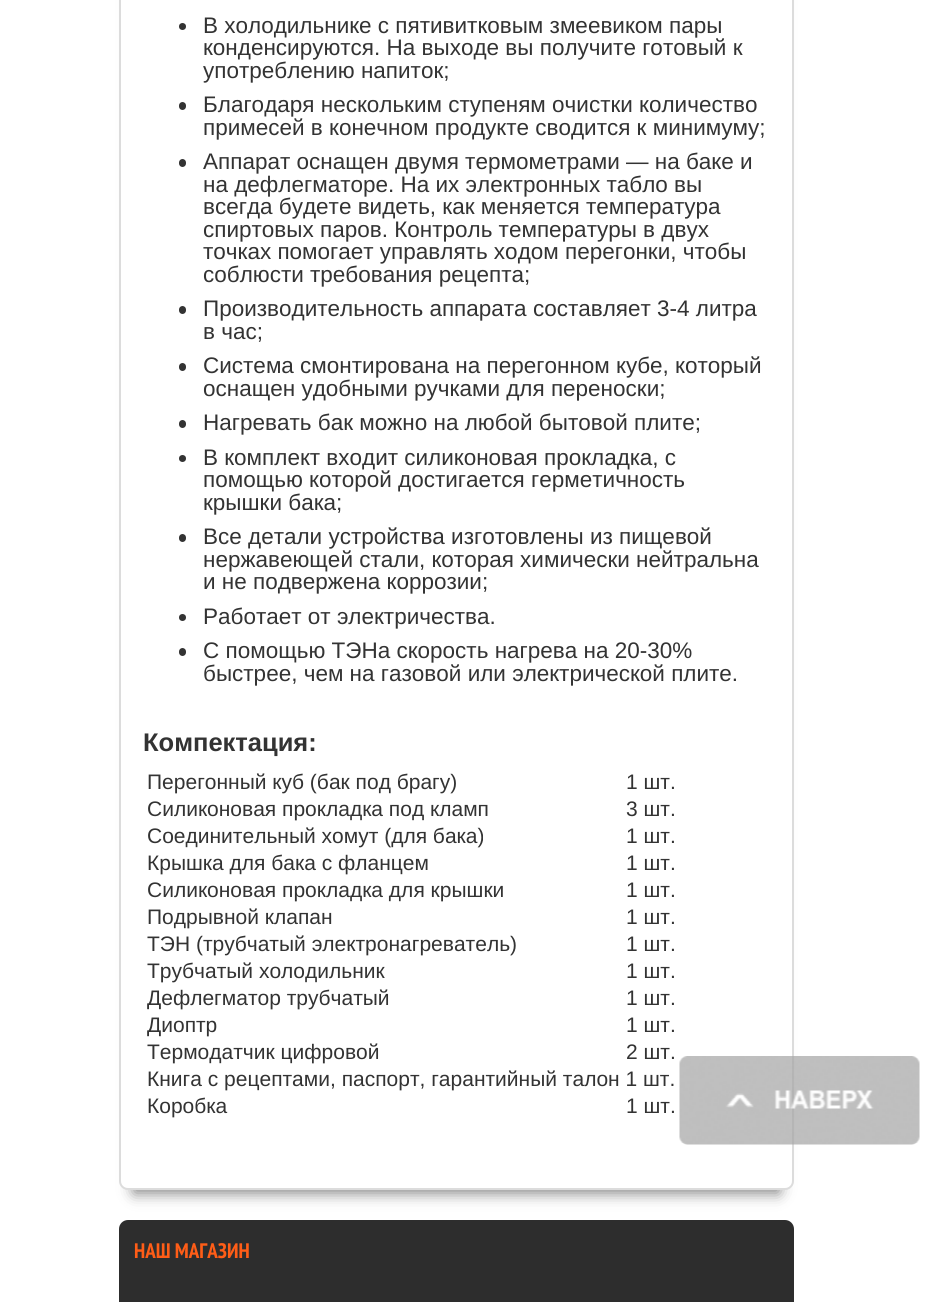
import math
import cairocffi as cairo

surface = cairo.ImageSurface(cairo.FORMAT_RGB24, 927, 1302)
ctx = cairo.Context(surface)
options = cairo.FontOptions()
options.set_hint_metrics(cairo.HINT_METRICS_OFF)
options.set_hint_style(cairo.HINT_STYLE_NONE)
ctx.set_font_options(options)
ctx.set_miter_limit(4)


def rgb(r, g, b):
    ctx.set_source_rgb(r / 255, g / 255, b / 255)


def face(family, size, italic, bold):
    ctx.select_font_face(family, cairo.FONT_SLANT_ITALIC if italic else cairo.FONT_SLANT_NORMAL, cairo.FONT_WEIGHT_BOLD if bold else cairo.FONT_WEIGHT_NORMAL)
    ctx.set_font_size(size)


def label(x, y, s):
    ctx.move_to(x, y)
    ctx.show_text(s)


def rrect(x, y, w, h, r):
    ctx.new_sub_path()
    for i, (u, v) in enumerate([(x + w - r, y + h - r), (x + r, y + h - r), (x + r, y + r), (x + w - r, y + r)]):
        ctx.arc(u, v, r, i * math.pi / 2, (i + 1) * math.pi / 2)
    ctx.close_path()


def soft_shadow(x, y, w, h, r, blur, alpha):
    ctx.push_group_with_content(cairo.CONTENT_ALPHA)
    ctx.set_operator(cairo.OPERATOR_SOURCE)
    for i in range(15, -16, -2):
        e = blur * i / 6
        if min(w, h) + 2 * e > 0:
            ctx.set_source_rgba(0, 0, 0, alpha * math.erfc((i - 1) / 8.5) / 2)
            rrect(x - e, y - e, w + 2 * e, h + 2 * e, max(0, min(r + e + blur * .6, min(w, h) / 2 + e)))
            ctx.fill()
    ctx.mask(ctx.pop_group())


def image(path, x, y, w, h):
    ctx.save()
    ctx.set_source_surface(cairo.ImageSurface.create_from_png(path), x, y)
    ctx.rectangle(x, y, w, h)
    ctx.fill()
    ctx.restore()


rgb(255, 255, 255)
ctx.paint()
rgb(0, 0, 0)
soft_shadow(134, -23, 645, 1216, 0, 7.5, 0.5)
rgb(255, 255, 255)
ctx.new_path()
ctx.move_to(120, -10)
ctx.line_to(793, -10)
ctx.line_to(793, 1181)
ctx.curve_to(793, 1185.5, 789.5, 1189, 785, 1189)
ctx.line_to(128, 1189)
ctx.curve_to(123.5, 1189, 120, 1185.5, 120, 1181)
ctx.close_path()
ctx.fill_preserve()
rgb(220, 220, 220)
ctx.stroke()
rgb(51, 51, 51)
ctx.arc(182.5, 26.5, 3.5, 0, 2 * math.pi)
ctx.fill()
face('Liberation Sans', 22.5, 0, 0)
label(203, 33, 'В холодильнике с пятивитковым змеевиком пары')
label(203, 55, 'конденсируются. На выходе вы получите готовый к')
label(203, 78, 'употреблению напиток;')
rrect(179, 102, 7, 8, 3.5)
ctx.fill()
label(203, 112, 'Благодаря нескольким ступеням очистки количество')
label(203, 135, 'примесей в конечном продукте сводится к минимуму;')
rrect(179, 159, 7, 8, 3.5)
ctx.fill()
label(203, 169, 'Аппарат оснащен двумя термометрами — на баке и')
label(203, 192, 'на дефлегматоре. На их электронных табло вы')
label(203, 214, 'всегда будете видеть, как меняется температура')
label(203, 237, 'спиртовых паров. Контроль температуры в двух')
label(203, 259, 'точках помогает управлять ходом перегонки, чтобы')
label(203, 282, 'соблюсти требования рецепта;')
rrect(179, 306, 7, 8, 3.5)
ctx.fill()
label(203, 316, 'Производительность аппарата составляет 3-4 литра')
label(203, 339, 'в час;')
rrect(179, 363, 7, 8, 3.5)
ctx.fill()
label(203, 373, 'Система смонтирована на перегонном кубе, который')
label(203, 396, 'оснащен удобными ручками для переноски;')
rrect(179, 420, 7, 8, 3.5)
ctx.fill()
label(203, 430, 'Нагревать бак можно на любой бытовой плите;')
ctx.new_path()
ctx.arc(182.5, 458.5, 3.5, 0, 2 * math.pi)
ctx.fill()
label(203, 465, 'В комплект входит силиконовая прокладка, с')
label(203, 487, 'помощью которой достигается герметичность')
label(203, 510, 'крышки бака;')
rrect(179, 534, 7, 8, 3.5)
ctx.fill()
label(203, 544, 'Все детали устройства изготовлены из пищевой')
label(203, 567, 'нержавеющей стали, которая химически нейтральна')
label(203, 589, 'и не подвержена коррозии;')
ctx.new_path()
ctx.arc(182.5, 617.5, 3.5, 0, 2 * math.pi)
ctx.fill()
label(203, 624, 'Работает от электричества.')
rrect(179, 648, 7, 8, 3.5)
ctx.fill()
label(203, 658, 'С помощью ТЭНа скорость нагрева на 20-30%')
label(203, 681, 'быстрее, чем на газовой или электрической плите.')
face('Liberation Sans', 25.5, 0, 1)
label(143, 751, 'Компектация:')
face('Liberation Sans', 21, 0, 0)
label(147, 789, 'Перегонный куб (бак под брагу)')
label(626, 789, '1 шт.')
label(147, 816, 'Силиконовая прокладка под кламп')
label(626, 816, '3 шт.')
label(147, 843, 'Соединительный хомут (для бака)')
label(626, 843, '1 шт.')
label(147, 870, 'Крышка для бака с фланцем')
label(626, 870, '1 шт.')
label(147, 897, 'Силиконовая прокладка для крышки')
label(626, 897, '1 шт.')
label(147, 924, 'Подрывной клапан')
label(626, 924, '1 шт.')
label(147, 951, 'ТЭН (трубчатый электронагреватель)')
label(626, 951, '1 шт.')
label(147, 978, 'Трубчатый холодильник')
label(626, 978, '1 шт.')
label(147, 1005, 'Дефлегматор трубчатый')
label(626, 1005, '1 шт.')
label(147, 1032, 'Диоптр')
label(626, 1032, '1 шт.')
label(147, 1059, 'Термодатчик цифровой')
label(626, 1059, '2 шт.')
label(147, 1086, 'Книга с рецептами, паспорт, гарантийный талон 1 шт.')
label(147, 1113, 'Коробка')
label(626, 1113, '1 шт.')
rgb(45, 45, 45)
rrect(119, 1220, 675, 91, 9)
ctx.fill()
image('image0.png', 679, 1056, 241, 89)
face('PT Sans Narrow', 21, 0, 1)
rgb(255, 93, 23)
label(134, 1258, 'НАШ МАГАЗИН')
surface.write_to_png('render.png')
